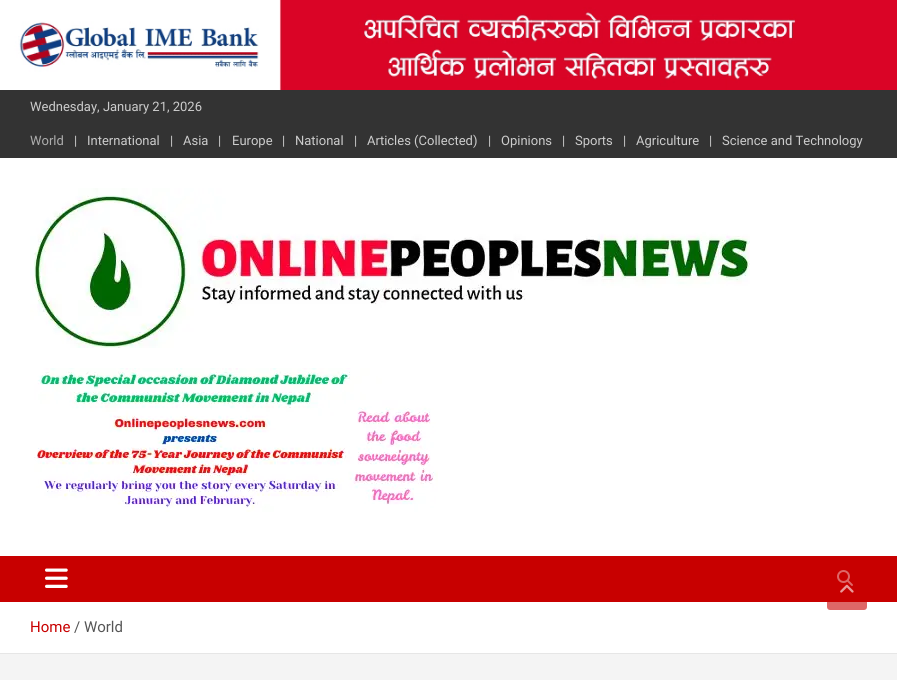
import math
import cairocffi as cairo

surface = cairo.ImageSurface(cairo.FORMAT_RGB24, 897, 680)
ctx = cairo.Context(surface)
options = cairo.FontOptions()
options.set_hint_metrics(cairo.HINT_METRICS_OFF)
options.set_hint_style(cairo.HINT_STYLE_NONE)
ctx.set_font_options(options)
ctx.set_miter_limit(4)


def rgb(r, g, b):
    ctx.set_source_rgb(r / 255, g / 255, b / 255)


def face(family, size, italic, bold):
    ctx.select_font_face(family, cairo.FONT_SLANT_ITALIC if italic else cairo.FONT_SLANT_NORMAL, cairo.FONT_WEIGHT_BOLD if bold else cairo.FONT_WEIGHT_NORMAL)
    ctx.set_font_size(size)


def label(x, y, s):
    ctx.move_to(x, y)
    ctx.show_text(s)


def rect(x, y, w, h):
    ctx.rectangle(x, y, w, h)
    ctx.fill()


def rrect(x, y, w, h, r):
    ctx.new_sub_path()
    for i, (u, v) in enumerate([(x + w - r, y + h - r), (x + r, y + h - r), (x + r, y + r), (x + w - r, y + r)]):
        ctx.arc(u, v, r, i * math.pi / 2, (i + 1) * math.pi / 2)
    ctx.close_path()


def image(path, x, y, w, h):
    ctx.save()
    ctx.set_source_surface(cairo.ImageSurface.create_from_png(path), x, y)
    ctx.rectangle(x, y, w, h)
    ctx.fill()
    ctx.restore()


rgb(244, 244, 244)
ctx.paint()
image('image0.png', 0, 0, 897, 90)
rgb(51, 51, 51)
rect(0, 90, 897, 68)
face('Roboto', 13, 0, 0)
rgb(204, 204, 204)
label(30, 111, 'Wednesday, January 21, 2026')
rgb(173, 173, 173)
label(30, 145, 'World')
rgb(204, 204, 204)
label(74, 145, '|')
label(87, 145, 'International')
label(170, 145, '|')
label(183, 145, 'Asia')
label(218, 145, '|')
label(232, 145, 'Europe')
label(282, 145, '|')
label(295, 145, 'National')
label(354, 145, '|')
label(367, 145, 'Articles (Collected)')
label(488, 145, '|')
label(501, 145, 'Opinions')
label(562, 145, '|')
label(575, 145, 'Sports')
label(623, 145, '|')
label(636, 145, 'Agriculture')
label(709, 145, '|')
label(722, 145, 'Science and Technology')
rgb(255, 255, 255)
rect(0, 158, 897, 398)
image('image1.png', 30, 188, 720, 160)
image('image2.png', 34, 368, 404, 144)
rgb(200, 0, 0)
rect(0, 556, 897, 46)
image('image3.png', 45, 568, 23, 20)
image('image4.png', 837, 570, 16, 16)
rgb(255, 255, 255)
rect(0, 602, 897, 51)
rgb(230, 230, 230)
rect(0, 653, 897, 1)
face('Roboto', 15, 0, 0)
rgb(200, 0, 0)
label(30, 632, 'Home')
rgb(85, 85, 85)
label(74, 632, '/ World')
ctx.set_source_rgba(0.784, 0, 0, 0.6)
rrect(827, 570, 40, 40, 3)
ctx.fill()
image('image5.png', 840, 584, 14, 9)
surface.write_to_png('render.png')
